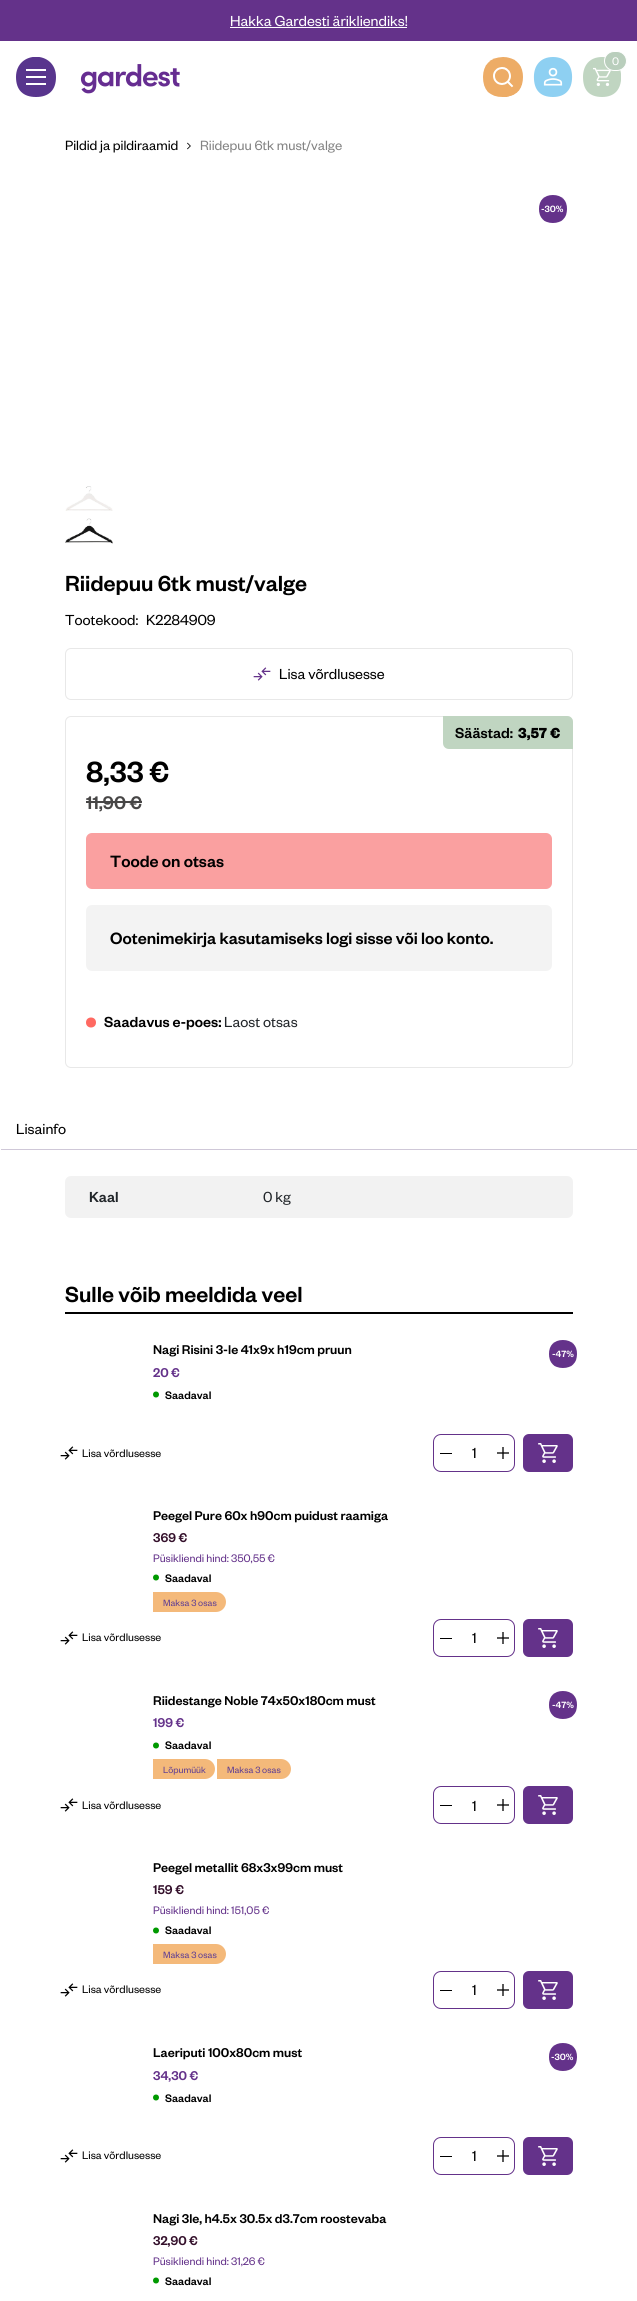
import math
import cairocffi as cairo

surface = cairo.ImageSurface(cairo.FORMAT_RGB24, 637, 2301)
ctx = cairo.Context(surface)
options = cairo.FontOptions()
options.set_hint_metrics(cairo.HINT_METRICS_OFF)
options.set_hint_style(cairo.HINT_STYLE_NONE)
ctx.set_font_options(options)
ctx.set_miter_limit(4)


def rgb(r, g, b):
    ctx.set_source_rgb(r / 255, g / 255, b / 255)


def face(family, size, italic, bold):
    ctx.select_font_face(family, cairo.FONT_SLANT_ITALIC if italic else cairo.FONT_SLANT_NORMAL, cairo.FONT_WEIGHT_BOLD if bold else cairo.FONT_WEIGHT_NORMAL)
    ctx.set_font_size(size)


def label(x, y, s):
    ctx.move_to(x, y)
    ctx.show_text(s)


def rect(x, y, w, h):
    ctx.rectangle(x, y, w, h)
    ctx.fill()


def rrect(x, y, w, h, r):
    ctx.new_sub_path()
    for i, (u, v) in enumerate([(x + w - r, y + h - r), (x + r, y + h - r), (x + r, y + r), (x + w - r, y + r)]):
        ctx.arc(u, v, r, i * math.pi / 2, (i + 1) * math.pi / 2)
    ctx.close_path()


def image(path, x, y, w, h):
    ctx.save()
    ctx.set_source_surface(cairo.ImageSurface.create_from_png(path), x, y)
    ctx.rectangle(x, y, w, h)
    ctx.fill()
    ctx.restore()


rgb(255, 255, 255)
ctx.paint()
rgb(100, 50, 138)
rect(0, 0, 637, 41)
face('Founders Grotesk', 16, 0, 0)
rgb(255, 255, 255)
label(230, 26, 'Hakka Gardesti ärikliendiks!')
rect(230, 27, 177, 1)
ctx.save()
ctx.rectangle(16, 57, 40, 40)
ctx.clip()
rgb(88, 53, 141)
ctx.new_path()
ctx.move_to(56, 77)
ctx.curve_to(56, 50, 16, 50, 16, 77)
ctx.curve_to(16, 90, 23, 97, 36, 97)
ctx.curve_to(49, 97, 56, 90, 56, 77)
ctx.close_path()
ctx.fill()
ctx.restore()
rect(26, 69, 20, 2)
rect(26, 76, 20, 2)
rect(26, 83, 20, 2)
image('image0.png', 483, 57, 40, 40)
image('image1.png', 533, 57, 40, 40)
image('image2.png', 583, 57, 38, 40)
rgb(185, 206, 188)
rrect(604.5, 51.5, 22, 19, 9.5)
ctx.fill_preserve()
rgb(255, 255, 255)
ctx.set_line_width(1)
ctx.stroke()
face('Founders Grotesk', 12, 0, 0)
label(612, 65, '0')
image('image3.png', 80, 64, 100, 30)
face('Founders Grotesk', 14.75, 0, 0)
rgb(0, 0, 0)
label(65, 150, 'Pildid ja pildiraamid')
image('image4.png', 187, 142, 4, 8)
rgb(131, 131, 131)
label(200, 150, 'Riidepuu 6tk must/valge')
image('image5.png', 539, 195, 28, 28)
face('Founders Grotesk Medium', 10, 0, 0)
rgb(255, 255, 255)
label(541, 212, '-30%')
image('image6.png', 65, 486, 48, 25)
image('image7.png', 65, 518, 48, 26)
face('Founders Grotesk Medium', 24, 0, 0)
rgb(0, 0, 0)
label(65, 591, 'Riidepuu 6tk must/valge')
face('Founders Grotesk', 16, 0, 0)
label(65, 625, 'Tootekood:')
label(146, 625, 'K2284909')
rrect(65.5, 648.5, 507, 51, 5.5)
rgb(232, 232, 232)
ctx.stroke()
image('image8.png', 253, 667, 18, 14)
rgb(0, 0, 0)
label(279, 679, 'Lisa võrdlusesse')
rrect(65.5, 716.5, 507, 351, 5.5)
rgb(232, 232, 232)
ctx.stroke()
rgb(192, 213, 193)
ctx.new_path()
ctx.move_to(443, 716)
ctx.line_to(567, 716)
ctx.curve_to(570.5, 716, 573, 718.5, 573, 722)
ctx.line_to(573, 749)
ctx.line_to(449, 749)
ctx.curve_to(445.5, 749, 443, 746.5, 443, 743)
ctx.close_path()
ctx.fill()
face('Founders Grotesk Medium', 16, 0, 0)
rgb(0, 0, 0)
label(455, 738, 'Säästad:')
face('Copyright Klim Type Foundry', 16, 0, 1)
label(518, 738, '3,57 €')
face('Founders Grotesk Medium', 32, 0, 0)
label(86, 782, '8,33 €')
face('Founders Grotesk Medium', 20, 0, 0)
rgb(71, 70, 70)
label(86, 809, '11,90 €')
rect(86, 801, 56, 2)
rgb(250, 160, 160)
rrect(86, 833, 466, 56, 6)
ctx.fill()
face('Founders Grotesk Medium', 18, 0, 0)
rgb(0, 0, 0)
label(110, 867, 'Toode on otsas')
rgb(243, 243, 243)
rrect(86, 905, 466, 66, 6)
ctx.fill()
rgb(0, 0, 0)
label(110, 944, 'Ootenimekirja kasutamiseks logi sisse või loo konto.')
rgb(255, 105, 97)
ctx.new_path()
ctx.arc(91, 1022.5, 5, 0, 2 * math.pi)
ctx.fill()
face('Founders Grotesk Medium', 16, 0, 0)
rgb(0, 0, 0)
label(104, 1027, 'Saadavus e-poes:')
face('Founders Grotesk', 16, 0, 0)
rgb(33, 37, 41)
label(224, 1027, 'Laost otsas')
rgb(207, 200, 216)
rect(1, 1149, 636, 1)
rgb(0, 0, 0)
label(16, 1134, 'Lisainfo')
rgb(242, 242, 242)
rrect(65, 1176, 508, 42, 6)
ctx.fill()
face('Founders Grotesk Medium', 16, 0, 0)
rgb(33, 37, 41)
label(89, 1202, 'Kaal')
face('Founders Grotesk', 16, 0, 0)
label(263, 1202, '0 kg')
rgb(0, 0, 0)
rect(65, 1312, 508, 2)
face('Founders Grotesk Medium', 24, 0, 0)
label(65, 1302, 'Sulle võib meeldida veel')
face('Founders Grotesk Medium', 14, 0, 0)
label(153, 1354, 'Nagi Risini 3-le 41x9x h19cm pruun')
image('image5.png', 549, 1340, 28, 28)
face('Founders Grotesk Medium', 10, 0, 0)
rgb(255, 255, 255)
label(552, 1357, '-47%')
face('Founders Grotesk Medium', 14, 0, 0)
rgb(100, 50, 138)
label(153, 1377, '20 €')
rgb(0, 153, 0)
ctx.new_path()
ctx.arc(156, 1394.5, 3, 0, 2 * math.pi)
ctx.fill()
face('Founders Grotesk Medium', 12, 0, 0)
rgb(0, 0, 0)
label(165, 1399, 'Saadaval')
image('image9.png', 60, 1446, 18, 14)
face('Founders Grotesk', 12, 0, 0)
label(82, 1457, 'Lisa võrdlusesse')
rrect(433.5, 1434.5, 81, 37, 7.5)
rgb(100, 50, 138)
ctx.stroke()
rgb(0, 0, 0)
rect(440, 1453, 12, 1)
face('Founders Grotesk', 16, 0, 0)
label(472, 1458, '1')
image('image10.png', 497, 1447, 12, 12)
rgb(100, 50, 138)
rrect(523, 1434, 50, 38, 6)
ctx.fill()
image('image11.png', 538, 1443, 20, 20)
face('Founders Grotesk Medium', 14, 0, 0)
rgb(0, 0, 0)
label(153, 1520, 'Peegel Pure 60x h90cm puidust raamiga')
rgb(52, 16, 43)
label(153, 1542, '369 €')
face('Founders Grotesk', 12, 0, 0)
rgb(100, 50, 138)
label(153, 1562, 'Püsikliendi hind: 350,55 €')
rgb(0, 153, 0)
ctx.new_path()
ctx.arc(156, 1577.5, 3, 0, 2 * math.pi)
ctx.fill()
face('Founders Grotesk Medium', 12, 0, 0)
rgb(0, 0, 0)
label(165, 1582, 'Saadaval')
rgb(244, 185, 122)
ctx.new_path()
ctx.move_to(153, 1592)
ctx.line_to(216, 1592)
ctx.curve_to(221.5, 1592, 226, 1596.5, 226, 1602)
ctx.curve_to(226, 1607.5, 221.5, 1612, 216, 1612)
ctx.line_to(153, 1612)
ctx.close_path()
ctx.fill()
face('Founders Grotesk', 10, 0, 0)
rgb(96, 63, 147)
label(163, 1606, 'Maksa 3 osas')
image('image9.png', 60, 1631, 18, 14)
face('Founders Grotesk', 12, 0, 0)
rgb(0, 0, 0)
label(82, 1641, 'Lisa võrdlusesse')
rrect(433.5, 1619.5, 81, 37, 7.5)
rgb(100, 50, 138)
ctx.stroke()
rgb(0, 0, 0)
rect(440, 1638, 12, 1)
face('Founders Grotesk', 16, 0, 0)
label(472, 1643, '1')
image('image10.png', 497, 1632, 12, 12)
rgb(100, 50, 138)
rrect(523, 1619, 50, 38, 6)
ctx.fill()
image('image11.png', 538, 1628, 20, 20)
face('Founders Grotesk Medium', 14, 0, 0)
rgb(0, 0, 0)
label(153, 1705, 'Riidestange Noble 74x50x180cm must')
image('image5.png', 549, 1691, 28, 28)
face('Founders Grotesk Medium', 10, 0, 0)
rgb(255, 255, 255)
label(552, 1708, '-47%')
face('Founders Grotesk Medium', 14, 0, 0)
rgb(100, 50, 138)
label(153, 1727, '199 €')
ctx.set_source_rgba(1, 1, 1, 0.2)
rect(152, 1719, 1, 2)
rgb(0, 153, 0)
ctx.new_path()
ctx.arc(156, 1745.5, 3, 0, 2 * math.pi)
ctx.fill()
face('Founders Grotesk Medium', 12, 0, 0)
rgb(0, 0, 0)
label(165, 1749, 'Saadaval')
rgb(244, 185, 122)
ctx.new_path()
ctx.move_to(153, 1759)
ctx.line_to(205, 1759)
ctx.curve_to(210.5, 1759, 215, 1763.5, 215, 1769)
ctx.curve_to(215, 1774.5, 210.5, 1779, 205, 1779)
ctx.line_to(153, 1779)
ctx.close_path()
ctx.fill()
face('Founders Grotesk', 10, 0, 0)
rgb(96, 63, 147)
label(163, 1773, 'Lõpumüük')
rgb(244, 185, 122)
ctx.new_path()
ctx.move_to(217, 1759)
ctx.line_to(281, 1759)
ctx.curve_to(286.5, 1759, 291, 1763.5, 291, 1769)
ctx.curve_to(291, 1774.5, 286.5, 1779, 281, 1779)
ctx.line_to(217, 1779)
ctx.close_path()
ctx.fill()
rgb(96, 63, 147)
label(227, 1773, 'Maksa 3 osas')
image('image9.png', 60, 1798, 18, 14)
face('Founders Grotesk', 12, 0, 0)
rgb(0, 0, 0)
label(82, 1809, 'Lisa võrdlusesse')
rrect(433.5, 1786.5, 81, 37, 7.5)
rgb(100, 50, 138)
ctx.stroke()
rgb(0, 0, 0)
rect(440, 1805, 12, 1)
face('Founders Grotesk', 16, 0, 0)
label(472, 1811, '1')
image('image10.png', 497, 1799, 12, 12)
rgb(100, 50, 138)
rrect(523, 1786, 50, 38, 6)
ctx.fill()
image('image11.png', 538, 1795, 20, 20)
face('Founders Grotesk Medium', 14, 0, 0)
rgb(0, 0, 0)
label(153, 1872, 'Peegel metallit 68x3x99cm must')
rgb(52, 16, 43)
label(153, 1894, '159 €')
ctx.set_source_rgba(1, 1, 1, 0.2)
rect(152, 1886, 1, 2)
face('Founders Grotesk', 12, 0, 0)
rgb(100, 50, 138)
label(153, 1914, 'Püsikliendi hind: 151,05 €')
rgb(0, 153, 0)
ctx.new_path()
ctx.arc(156, 1930.5, 3, 0, 2 * math.pi)
ctx.fill()
face('Founders Grotesk Medium', 12, 0, 0)
rgb(0, 0, 0)
label(165, 1934, 'Saadaval')
rgb(244, 185, 122)
ctx.new_path()
ctx.move_to(153, 1944)
ctx.line_to(216, 1944)
ctx.curve_to(221.5, 1944, 226, 1948.5, 226, 1954)
ctx.curve_to(226, 1959.5, 221.5, 1964, 216, 1964)
ctx.line_to(153, 1964)
ctx.close_path()
ctx.fill()
face('Founders Grotesk', 10, 0, 0)
rgb(96, 63, 147)
label(163, 1958, 'Maksa 3 osas')
image('image9.png', 60, 1983, 18, 14)
face('Founders Grotesk', 12, 0, 0)
rgb(0, 0, 0)
label(82, 1993, 'Lisa võrdlusesse')
rrect(433.5, 1971.5, 81, 37, 7.5)
rgb(100, 50, 138)
ctx.stroke()
rgb(0, 0, 0)
rect(440, 1990, 12, 1)
face('Founders Grotesk', 16, 0, 0)
label(472, 1995, '1')
image('image10.png', 497, 1984, 12, 12)
rgb(100, 50, 138)
rrect(523, 1971, 50, 38, 6)
ctx.fill()
image('image11.png', 538, 1980, 20, 20)
face('Founders Grotesk Medium', 14, 0, 0)
rgb(0, 0, 0)
label(153, 2057, 'Laeriputi 100x80cm must')
image('image5.png', 549, 2043, 28, 28)
face('Founders Grotesk Medium', 10, 0, 0)
rgb(255, 255, 255)
label(551, 2060, '-30%')
face('Founders Grotesk Medium', 14, 0, 0)
rgb(100, 50, 138)
label(153, 2080, '34,30 €')
rgb(0, 153, 0)
ctx.new_path()
ctx.arc(156, 2097.5, 3, 0, 2 * math.pi)
ctx.fill()
face('Founders Grotesk Medium', 12, 0, 0)
rgb(0, 0, 0)
label(165, 2102, 'Saadaval')
image('image9.png', 60, 2149, 18, 14)
face('Founders Grotesk', 12, 0, 0)
label(82, 2159, 'Lisa võrdlusesse')
rrect(433.5, 2137.5, 81, 37, 7.5)
rgb(100, 50, 138)
ctx.stroke()
rgb(0, 0, 0)
rect(440, 2156, 12, 1)
face('Founders Grotesk', 16, 0, 0)
label(472, 2161, '1')
image('image10.png', 497, 2150, 12, 12)
rgb(100, 50, 138)
rrect(523, 2137, 50, 38, 6)
ctx.fill()
image('image11.png', 538, 2146, 20, 20)
face('Founders Grotesk Medium', 14, 0, 0)
rgb(0, 0, 0)
label(153, 2223, 'Nagi 3le, h4.5x 30.5x d3.7cm roostevaba')
rgb(52, 16, 43)
label(153, 2245, '32,90 €')
ctx.set_source_rgba(1, 1, 1, 0.2)
rect(152, 2242, 1, 1)
face('Founders Grotesk', 12, 0, 0)
rgb(100, 50, 138)
label(153, 2265, 'Püsikliendi hind: 31,26 €')
rgb(0, 153, 0)
ctx.new_path()
ctx.arc(156, 2280.5, 3, 0, 2 * math.pi)
ctx.fill()
face('Founders Grotesk Medium', 12, 0, 0)
rgb(0, 0, 0)
label(165, 2285, 'Saadaval')
surface.write_to_png('render.png')
